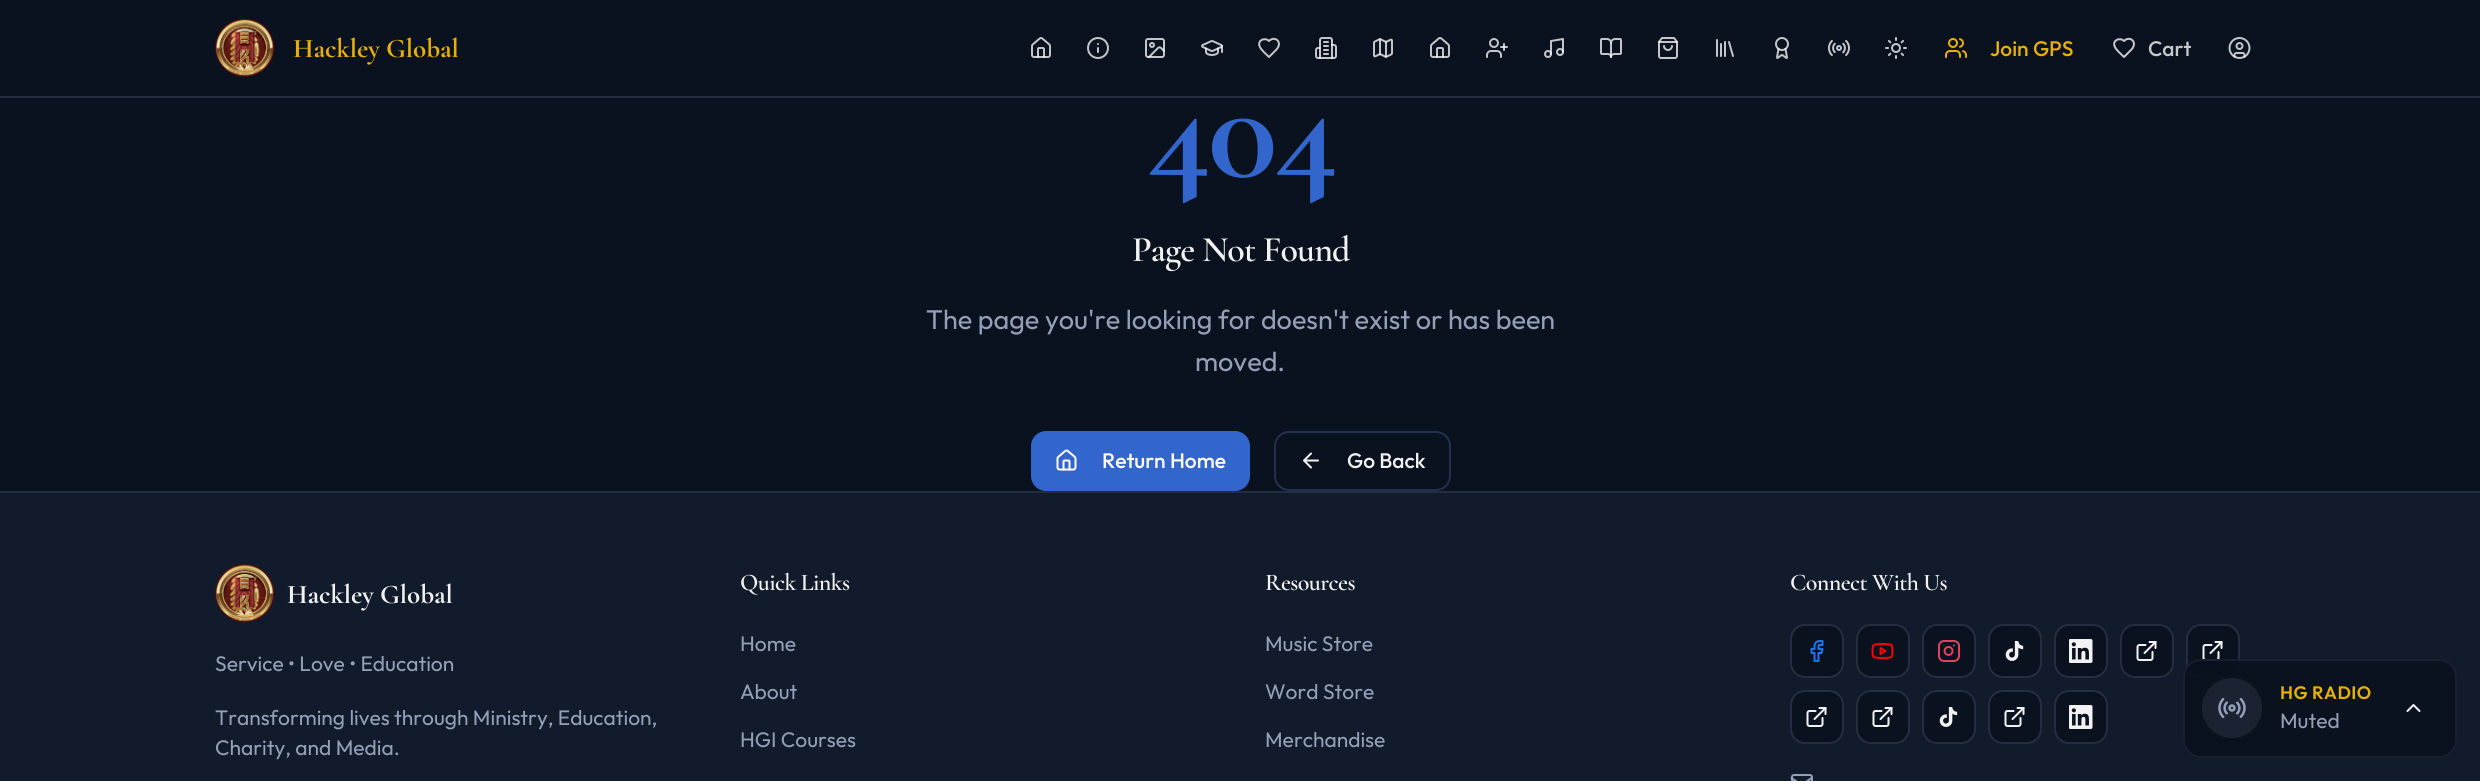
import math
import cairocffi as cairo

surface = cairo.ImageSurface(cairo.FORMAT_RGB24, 2480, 781)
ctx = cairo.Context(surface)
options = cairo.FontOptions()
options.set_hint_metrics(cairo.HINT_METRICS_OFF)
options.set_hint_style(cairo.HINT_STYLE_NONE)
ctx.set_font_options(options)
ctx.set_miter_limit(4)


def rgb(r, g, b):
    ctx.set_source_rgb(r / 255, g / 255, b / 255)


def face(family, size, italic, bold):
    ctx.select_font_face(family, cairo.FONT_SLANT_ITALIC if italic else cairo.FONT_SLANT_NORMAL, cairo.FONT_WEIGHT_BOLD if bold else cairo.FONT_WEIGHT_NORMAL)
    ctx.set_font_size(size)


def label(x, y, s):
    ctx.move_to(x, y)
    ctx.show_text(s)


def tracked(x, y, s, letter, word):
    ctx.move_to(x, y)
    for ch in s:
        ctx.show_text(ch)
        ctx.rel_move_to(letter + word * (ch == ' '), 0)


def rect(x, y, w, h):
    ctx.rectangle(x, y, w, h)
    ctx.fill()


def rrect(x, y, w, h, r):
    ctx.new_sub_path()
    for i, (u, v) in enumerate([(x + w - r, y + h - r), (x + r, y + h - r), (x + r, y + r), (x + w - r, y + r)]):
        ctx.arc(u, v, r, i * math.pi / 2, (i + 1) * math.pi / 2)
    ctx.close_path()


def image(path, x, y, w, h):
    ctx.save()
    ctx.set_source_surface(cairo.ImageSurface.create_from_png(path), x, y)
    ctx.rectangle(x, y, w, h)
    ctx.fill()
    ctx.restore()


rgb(10, 17, 31)
ctx.paint()
rgb(36, 46, 66)
rect(0, 96, 2480, 2)
image('image0.png', 214, 18, 61, 59)
face('Cormorant Garamond', 27, 0, 1)
rgb(231, 176, 8)
label(293, 57, 'Hackley Global')
image('image1.png', 1031, 37, 20, 21)
image('image2.png', 1087, 37, 22, 22)
image('image3.png', 1145, 38, 20, 20)
image('image4.png', 1201, 40, 22, 16)
ctx.new_path()
ctx.move_to(1276, 50)
ctx.curve_to(1283.5, 42.5, 1275, 35, 1269, 41)
ctx.curve_to(1265, 37, 1257.5, 40, 1259.5, 46)
ctx.curve_to(1260.5, 49.5, 1266.5, 54.5, 1269, 57)
ctx.close_path()
rgb(196, 197, 200)
ctx.set_line_cap(cairo.LINE_CAP_ROUND)
ctx.set_line_join(cairo.LINE_JOIN_ROUND)
ctx.stroke()
image('image5.png', 1315, 37, 22, 22)
image('image6.png', 1373, 38, 20, 20)
image('image1.png', 1430, 37, 20, 21)
image('image7.png', 1486, 38, 22, 20)
ctx.new_path()
ctx.move_to(1551, 54)
ctx.line_to(1551, 41)
ctx.line_to(1563, 39)
ctx.line_to(1563, 52)
ctx.stroke()
ctx.arc(1548, 54, 3, 0, 2 * math.pi)
ctx.set_source_rgba(0.949, 0.949, 0.949, 0.8)
ctx.set_line_cap(cairo.LINE_CAP_BUTT)
ctx.set_line_join(cairo.LINE_JOIN_MITER)
ctx.stroke()
ctx.arc(1560, 52, 3, 0, 2 * math.pi)
ctx.stroke()
image('image8.png', 1600, 38, 22, 20)
image('image9.png', 1658, 37, 20, 22)
image('image10.png', 1716, 39, 18, 18)
image('image11.png', 1775, 37, 14, 22)
image('image12.png', 1828, 39, 22, 18)
image('image13.png', 1885, 37, 22, 22)
image('image14.png', 1945, 38, 22, 20)
face('Outfit Medium', 21, 0, 0)
rgb(231, 176, 8)
label(1990, 56, 'Join GPS')
ctx.new_path()
ctx.move_to(2131, 50)
ctx.curve_to(2138.5, 42.5, 2130, 35, 2124, 41)
ctx.curve_to(2120, 37, 2112.5, 40, 2114.5, 46)
ctx.curve_to(2115.5, 49.5, 2121.5, 54.5, 2124, 57)
ctx.close_path()
rgb(200, 200, 200)
ctx.set_line_cap(cairo.LINE_CAP_ROUND)
ctx.set_line_join(cairo.LINE_JOIN_ROUND)
ctx.stroke()
label(2148, 56, 'Cart')
image('image15.png', 2228, 37, 23, 22)
face('Cormorant Garamond', 144, 0, 1)
rgb(51, 102, 204)
tracked(1146, 176, '404', -3.5, 0)
face('Cormorant Garamond SemiBold', 36, 0, 0)
rgb(242, 242, 242)
tracked(1132, 261, 'Page Not Found', -0.9, 0)
face('Outfit', 27, 0, 0)
rgb(148, 160, 184)
label(926, 329, 'The page you\'re looking for doesn\'t exist or has been')
label(1195, 371, 'moved.')
rgb(51, 102, 204)
rrect(1031, 431, 219, 60, 15)
ctx.fill()
image('image16.png', 1056, 449, 21, 22)
face('Outfit Medium', 21, 0, 0)
rgb(255, 255, 255)
label(1102, 468, 'Return Home')
rrect(1275, 432, 175, 58, 14)
rgb(34, 49, 79)
ctx.set_line_cap(cairo.LINE_CAP_BUTT)
ctx.set_line_join(cairo.LINE_JOIN_MITER)
ctx.stroke()
ctx.new_path()
ctx.move_to(1311, 467.5)
ctx.line_to(1304, 460.5)
ctx.line_to(1311, 453.5)
ctx.move_to(1318, 460.5)
ctx.line_to(1304, 460.5)
rgb(242, 242, 242)
ctx.set_line_cap(cairo.LINE_CAP_ROUND)
ctx.set_line_join(cairo.LINE_JOIN_ROUND)
ctx.stroke()
label(1347, 468, 'Go Back')
rgb(18, 27, 43)
rect(0, 493, 2480, 288)
rgb(36, 46, 66)
rect(0, 491, 2480, 2)
image('image17.png', 214, 563, 61, 60)
face('Cormorant Garamond', 27, 0, 1)
rgb(242, 242, 242)
label(287, 603, 'Hackley Global')
face('Outfit', 21, 0, 0)
rgb(148, 160, 184)
label(215, 671, 'Service • Love • Education')
label(215, 725, 'Transforming lives through Ministry, Education,')
label(215, 755, 'Charity, and Media.')
face('Cormorant Garamond SemiBold', 24, 0, 0)
rgb(242, 242, 242)
tracked(740, 590, 'Quick Links', -0.6, 0)
face('Outfit', 21, 0, 0)
rgb(148, 160, 184)
label(740, 651, 'Home')
label(740, 699, 'About')
label(740, 747, 'HGI Courses')
face('Cormorant Garamond SemiBold', 24, 0, 0)
rgb(242, 242, 242)
tracked(1265, 590, 'Resources', -0.6, 0)
face('Outfit', 21, 0, 0)
rgb(148, 160, 184)
label(1265, 651, 'Music Store')
label(1265, 699, 'Word Store')
label(1265, 747, 'Merchandise')
face('Cormorant Garamond SemiBold', 24, 0, 0)
rgb(242, 242, 242)
tracked(1790, 590, 'Connect With Us', -0.6, 0)
rgb(10, 17, 31)
rrect(1791, 625, 52, 52, 14)
ctx.fill_preserve()
rgb(36, 46, 66)
ctx.set_line_cap(cairo.LINE_CAP_BUTT)
ctx.set_line_join(cairo.LINE_JOIN_MITER)
ctx.stroke()
image('image18.png', 1810, 640, 14, 22)
rgb(10, 17, 31)
rrect(1857, 625, 52, 52, 14)
ctx.fill_preserve()
rgb(36, 46, 66)
ctx.stroke()
image('image19.png', 1871, 642, 23, 18)
rgb(10, 17, 31)
rrect(1923, 625, 52, 52, 14)
ctx.fill_preserve()
rgb(36, 46, 66)
ctx.stroke()
image('image20.png', 1938, 640, 22, 22)
rgb(10, 17, 31)
rrect(1989, 625, 52, 52, 14)
ctx.fill_preserve()
rgb(36, 46, 66)
ctx.stroke()
image('image21.png', 2005, 641, 19, 20)
rgb(10, 17, 31)
rrect(2055, 625, 52, 52, 14)
ctx.fill_preserve()
rgb(36, 46, 66)
ctx.stroke()
image('image22.png', 2069, 639, 24, 24)
rgb(10, 17, 31)
rrect(2121, 625, 52, 52, 14)
ctx.fill_preserve()
rgb(36, 46, 66)
ctx.stroke()
image('image23.png', 2136, 641, 21, 20)
rgb(10, 17, 31)
rrect(2187, 625, 52, 52, 14)
ctx.fill_preserve()
rgb(36, 46, 66)
ctx.stroke()
image('image23.png', 2202, 641, 21, 20)
rgb(10, 17, 31)
rrect(1791, 691, 52, 52, 14)
ctx.fill_preserve()
rgb(36, 46, 66)
ctx.stroke()
image('image23.png', 1806, 707, 21, 20)
rgb(10, 17, 31)
rrect(1857, 691, 52, 52, 14)
ctx.fill_preserve()
rgb(36, 46, 66)
ctx.stroke()
image('image23.png', 1872, 707, 21, 20)
rgb(10, 17, 31)
rrect(1923, 691, 52, 52, 14)
ctx.fill_preserve()
rgb(36, 46, 66)
ctx.stroke()
image('image21.png', 1939, 707, 19, 20)
rgb(10, 17, 31)
rrect(1989, 691, 52, 52, 14)
ctx.fill_preserve()
rgb(36, 46, 66)
ctx.stroke()
image('image23.png', 2004, 707, 21, 20)
rgb(10, 17, 31)
rrect(2055, 691, 52, 52, 14)
ctx.fill_preserve()
rgb(36, 46, 66)
ctx.stroke()
image('image22.png', 2069, 705, 24, 24)
rrect(1792, 775, 20, 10, 2)
rgb(148, 160, 184)
ctx.stroke()
ctx.new_path()
ctx.move_to(1811.5, 778)
ctx.curve_to(1799.5, 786, 1803.5, 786, 1791.5, 778)
ctx.set_line_cap(cairo.LINE_CAP_ROUND)
ctx.set_line_join(cairo.LINE_JOIN_ROUND)
ctx.stroke()
ctx.set_source_rgba(0.039, 0.067, 0.122, 0.95)
rrect(2183, 659, 274, 99, 18)
ctx.fill()
rrect(2184, 660, 272, 97, 17)
ctx.set_source_rgba(0.141, 0.18, 0.259, 0.5)
ctx.set_line_cap(cairo.LINE_CAP_BUTT)
ctx.set_line_join(cairo.LINE_JOIN_MITER)
ctx.stroke()
rgb(27, 34, 50)
ctx.arc(2232, 708, 30, 0, 2 * math.pi)
ctx.fill()
image('image24.png', 2218, 697, 28, 22)
face('Outfit SemiBold', 18, 0, 0)
rgb(231, 176, 8)
tracked(2280, 699, 'HG RADIO', 0.5, 0)
face('Outfit', 21, 0, 0)
rgb(148, 160, 184)
label(2280, 728, 'Muted')
ctx.new_path()
ctx.move_to(2419.5, 711)
ctx.line_to(2413.5, 705)
ctx.line_to(2407.5, 711)
rgb(242, 242, 242)
ctx.set_line_cap(cairo.LINE_CAP_ROUND)
ctx.set_line_join(cairo.LINE_JOIN_ROUND)
ctx.stroke()
surface.write_to_png('render.png')
